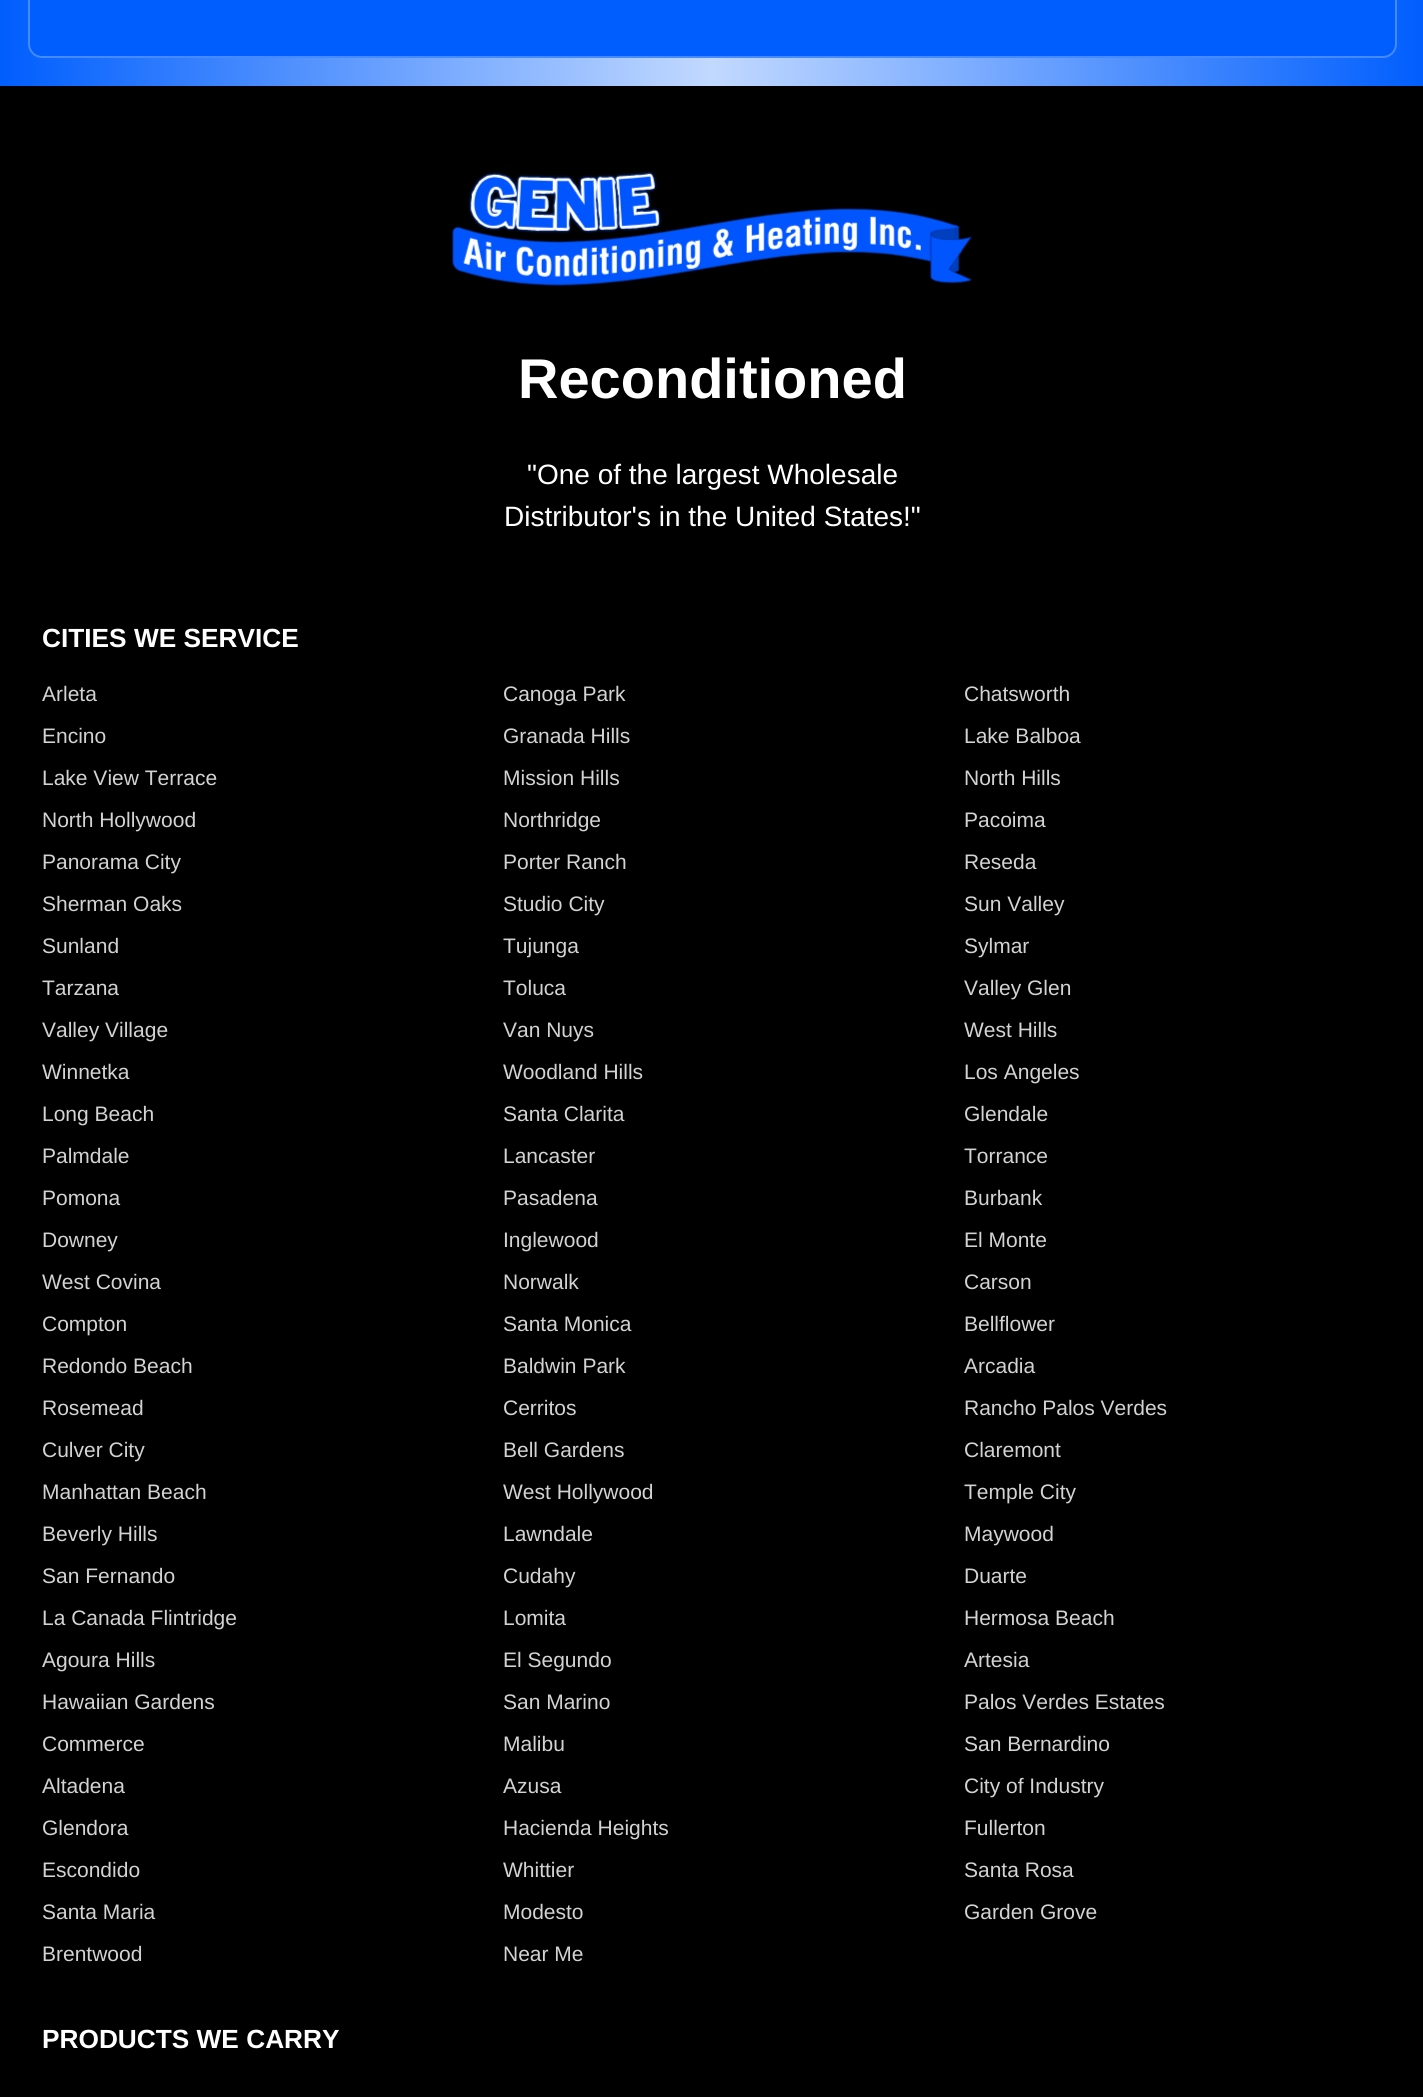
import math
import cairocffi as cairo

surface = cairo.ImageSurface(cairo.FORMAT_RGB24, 1423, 2097)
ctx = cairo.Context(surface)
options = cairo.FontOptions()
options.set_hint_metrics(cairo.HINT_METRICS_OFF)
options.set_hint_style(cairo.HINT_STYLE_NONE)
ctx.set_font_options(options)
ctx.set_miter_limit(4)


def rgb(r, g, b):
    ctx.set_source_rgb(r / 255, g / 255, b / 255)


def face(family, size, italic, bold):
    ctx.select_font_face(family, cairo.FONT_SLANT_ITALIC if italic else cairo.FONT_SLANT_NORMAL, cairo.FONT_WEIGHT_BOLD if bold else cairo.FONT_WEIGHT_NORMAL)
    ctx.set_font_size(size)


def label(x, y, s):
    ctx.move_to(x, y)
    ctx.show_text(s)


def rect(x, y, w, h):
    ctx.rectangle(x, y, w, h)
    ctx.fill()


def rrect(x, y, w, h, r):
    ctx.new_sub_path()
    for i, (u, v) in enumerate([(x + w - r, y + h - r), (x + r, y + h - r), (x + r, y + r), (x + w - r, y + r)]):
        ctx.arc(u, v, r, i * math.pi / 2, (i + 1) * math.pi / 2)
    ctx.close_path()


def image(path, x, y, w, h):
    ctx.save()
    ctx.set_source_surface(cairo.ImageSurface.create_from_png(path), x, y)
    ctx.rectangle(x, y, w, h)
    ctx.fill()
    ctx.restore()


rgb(255, 255, 255)
ctx.paint()
gradient = cairo.LinearGradient(0, 1133, 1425, 1133)
gradient.add_color_stop_rgba(0, 0, 0.369, 0.996, 1)
gradient.add_color_stop_rgba(0.5, 0.761, 0.851, 1, 1)
gradient.add_color_stop_rgba(1, 0, 0.369, 0.996, 1)
ctx.set_source(gradient)
rect(0, 0, 1423, 86)
rgb(0, 94, 254)
rrect(28, -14, 1369, 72, 14)
ctx.fill()
rrect(29, -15, 1367, 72, 13)
ctx.set_source_rgba(1, 1, 1, 0.27)
ctx.stroke()
rgb(0, 0, 0)
rect(0, 86, 1423, 2011)
image('image0.png', 451, 171, 521, 115)
face('Liberation Sans', 56, 0, 1)
rgb(255, 255, 255)
label(518, 398, 'Reconditioned')
face('Liberation Sans', 28, 0, 0)
label(527, 484, '"One of the largest Wholesale')
label(504, 526, 'Distributor\'s in the United States!"')
face('Liberation Sans', 26.25, 0, 1)
label(42, 647, 'CITIES WE SERVICE')
face('Liberation Sans', 21, 0, 0)
rgb(211, 211, 211)
label(42, 701, 'Arleta')
label(503, 701, 'Canoga Park')
label(964, 701, 'Chatsworth')
label(42, 743, 'Encino')
label(503, 743, 'Granada Hills')
label(964, 743, 'Lake Balboa')
label(42, 785, 'Lake View Terrace')
label(503, 785, 'Mission Hills')
label(964, 785, 'North Hills')
label(42, 827, 'North Hollywood')
label(503, 827, 'Northridge')
label(964, 827, 'Pacoima')
label(42, 869, 'Panorama City')
label(503, 869, 'Porter Ranch')
label(964, 869, 'Reseda')
label(42, 911, 'Sherman Oaks')
label(503, 911, 'Studio City')
label(964, 911, 'Sun Valley')
label(42, 953, 'Sunland')
label(503, 953, 'Tujunga')
label(964, 953, 'Sylmar')
label(42, 995, 'Tarzana')
label(503, 995, 'Toluca')
label(964, 995, 'Valley Glen')
label(42, 1037, 'Valley Village')
label(503, 1037, 'Van Nuys')
label(964, 1037, 'West Hills')
label(42, 1079, 'Winnetka')
label(503, 1079, 'Woodland Hills')
label(964, 1079, 'Los Angeles')
label(42, 1121, 'Long Beach')
label(503, 1121, 'Santa Clarita')
label(964, 1121, 'Glendale')
label(42, 1163, 'Palmdale')
label(503, 1163, 'Lancaster')
label(964, 1163, 'Torrance')
label(42, 1205, 'Pomona')
label(503, 1205, 'Pasadena')
label(964, 1205, 'Burbank')
label(42, 1247, 'Downey')
label(503, 1247, 'Inglewood')
label(964, 1247, 'El Monte')
label(42, 1289, 'West Covina')
label(503, 1289, 'Norwalk')
label(964, 1289, 'Carson')
label(42, 1331, 'Compton')
label(503, 1331, 'Santa Monica')
label(964, 1331, 'Bellflower')
label(42, 1373, 'Redondo Beach')
label(503, 1373, 'Baldwin Park')
label(964, 1373, 'Arcadia')
label(42, 1415, 'Rosemead')
label(503, 1415, 'Cerritos')
label(964, 1415, 'Rancho Palos Verdes')
label(42, 1457, 'Culver City')
label(503, 1457, 'Bell Gardens')
label(964, 1457, 'Claremont')
label(42, 1499, 'Manhattan Beach')
label(503, 1499, 'West Hollywood')
label(964, 1499, 'Temple City')
label(42, 1541, 'Beverly Hills')
label(503, 1541, 'Lawndale')
label(964, 1541, 'Maywood')
label(42, 1583, 'San Fernando')
label(503, 1583, 'Cudahy')
label(964, 1583, 'Duarte')
label(42, 1625, 'La Canada Flintridge')
label(503, 1625, 'Lomita')
label(964, 1625, 'Hermosa Beach')
label(42, 1667, 'Agoura Hills')
label(503, 1667, 'El Segundo')
label(964, 1667, 'Artesia')
label(42, 1709, 'Hawaiian Gardens')
label(503, 1709, 'San Marino')
label(964, 1709, 'Palos Verdes Estates')
label(42, 1751, 'Commerce')
label(503, 1751, 'Malibu')
label(964, 1751, 'San Bernardino')
label(42, 1793, 'Altadena')
label(503, 1793, 'Azusa')
label(964, 1793, 'City of Industry')
label(42, 1835, 'Glendora')
label(503, 1835, 'Hacienda Heights')
label(964, 1835, 'Fullerton')
label(42, 1877, 'Escondido')
label(503, 1877, 'Whittier')
label(964, 1877, 'Santa Rosa')
label(42, 1919, 'Santa Maria')
label(503, 1919, 'Modesto')
label(964, 1919, 'Garden Grove')
label(42, 1961, 'Brentwood')
label(503, 1961, 'Near Me')
face('Liberation Sans', 26.25, 0, 1)
rgb(255, 255, 255)
label(42, 2048, 'PRODUCTS WE CARRY')
surface.write_to_png('render.png')
